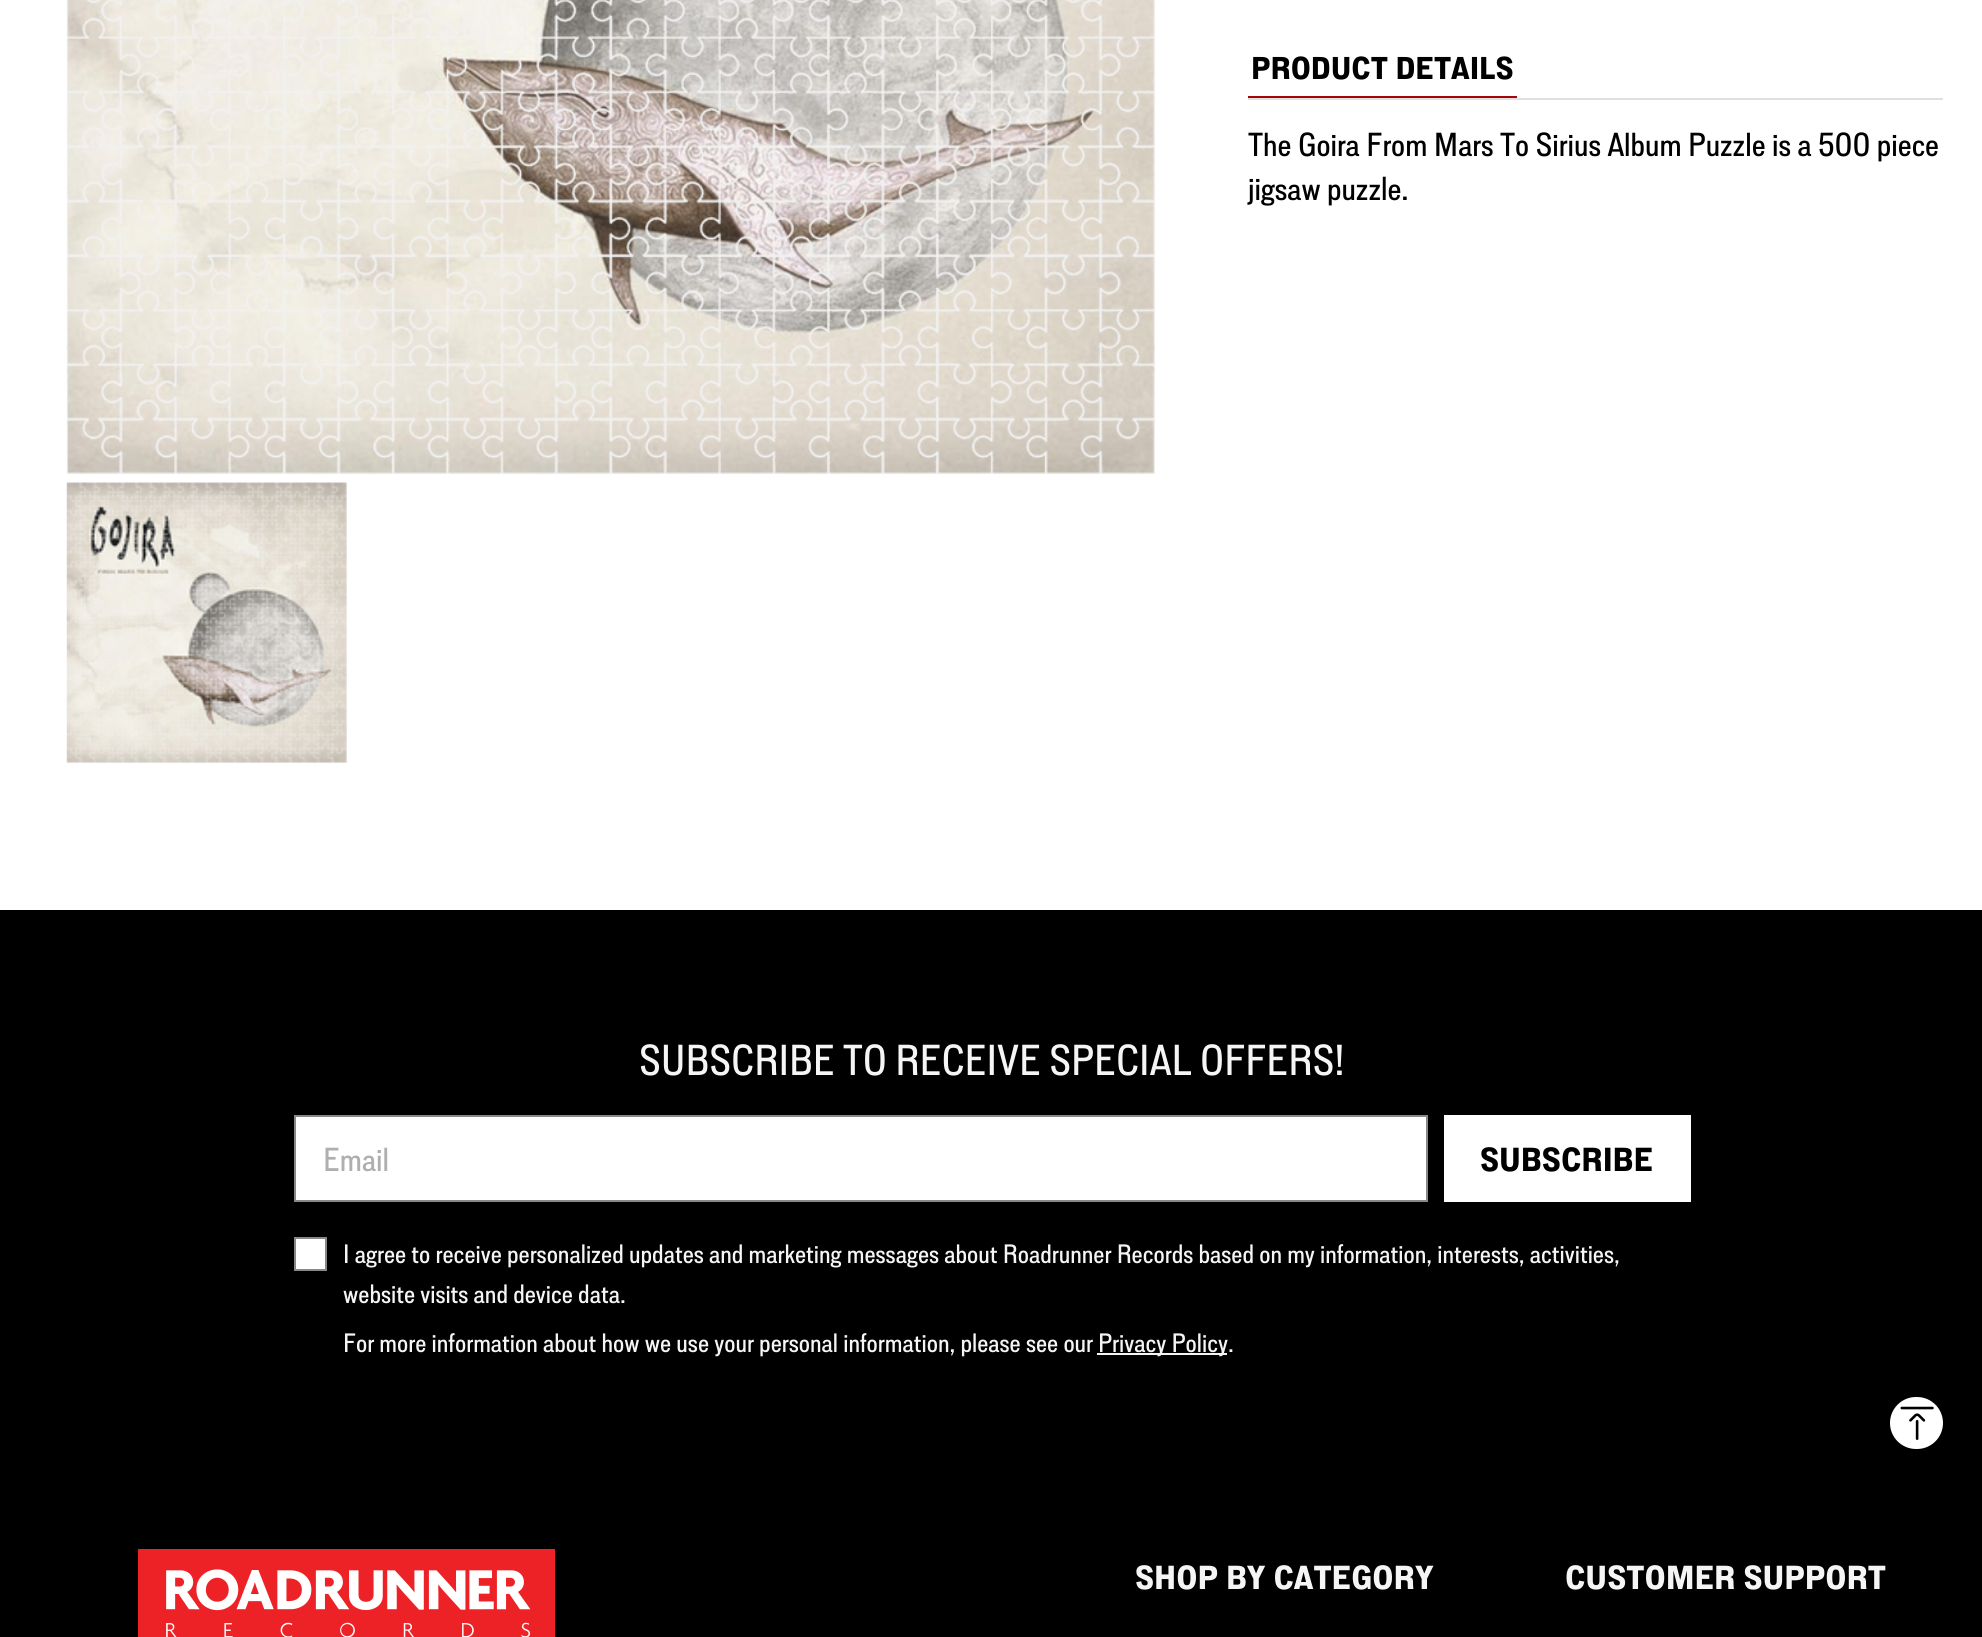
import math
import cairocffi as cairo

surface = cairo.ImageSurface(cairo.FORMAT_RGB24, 1982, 1637)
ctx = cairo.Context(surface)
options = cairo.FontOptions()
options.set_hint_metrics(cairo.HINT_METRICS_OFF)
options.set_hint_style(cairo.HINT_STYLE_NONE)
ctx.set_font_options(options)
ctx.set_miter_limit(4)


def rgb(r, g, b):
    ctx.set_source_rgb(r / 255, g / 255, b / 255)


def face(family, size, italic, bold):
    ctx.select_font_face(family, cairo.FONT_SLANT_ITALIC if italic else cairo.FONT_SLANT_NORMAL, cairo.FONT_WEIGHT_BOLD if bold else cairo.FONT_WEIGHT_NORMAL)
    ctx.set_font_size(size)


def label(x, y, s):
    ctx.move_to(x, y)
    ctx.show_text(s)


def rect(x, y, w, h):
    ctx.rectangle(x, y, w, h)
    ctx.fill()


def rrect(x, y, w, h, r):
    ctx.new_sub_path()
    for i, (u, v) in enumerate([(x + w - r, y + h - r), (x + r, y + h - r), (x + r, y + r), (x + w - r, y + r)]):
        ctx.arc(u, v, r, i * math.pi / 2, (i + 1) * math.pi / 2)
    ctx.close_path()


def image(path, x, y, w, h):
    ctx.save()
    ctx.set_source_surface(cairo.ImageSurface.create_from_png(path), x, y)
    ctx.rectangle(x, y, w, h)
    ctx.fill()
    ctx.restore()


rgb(255, 255, 255)
ctx.paint()
rgb(241, 241, 241)
rect(67, 0, 1088, 474)
image('image0.png', 66, 0, 1089, 474)
rect(67, 483, 280, 280)
image('image1.png', 66, 482, 281, 281)
rgb(224, 224, 224)
rect(1248, 98, 695, 2)
rgb(165, 5, 9)
rect(1248, 96, 269, 2)
face('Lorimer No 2', 31.5, 0, 1)
rgb(0, 0, 0)
label(1251, 79, 'PRODUCT DETAILS')
face('Lorimer No 2 Medium', 33.25, 0, 0)
label(1248, 156, 'The Goira From Mars To Sirius Album Puzzle is a 500 piece')
label(1248, 200, 'jigsaw puzzle.')
rect(0, 910, 1982, 727)
face('Lorimer No 2 Medium', 43.25, 0, 0)
rgb(245, 245, 245)
label(639, 1075, 'SUBSCRIBE TO RECEIVE SPECIAL OFFERS!')
rgb(255, 255, 255)
ctx.rectangle(295, 1116, 1132, 85)
ctx.fill_preserve()
rgb(136, 136, 136)
ctx.stroke()
face('Lorimer No 2 Medium', 33.25, 0, 0)
rgb(175, 175, 175)
label(323, 1171, 'Email')
rgb(255, 255, 255)
rect(1444, 1115, 247, 87)
face('Lorimer No 2', 33.25, 0, 1)
rgb(0, 0, 0)
label(1480, 1171, 'SUBSCRIBE')
rgb(255, 255, 255)
ctx.rectangle(295, 1238, 31, 32)
ctx.fill_preserve()
rgb(136, 136, 136)
ctx.stroke()
face('Lorimer No 2 Medium', 26.6, 0, 0)
rgb(245, 245, 245)
label(343, 1263, 'I agree to receive personalized updates and marketing messages about Roadrunner Records based on my information, interests, activities,')
label(343, 1303, 'website visits and device data.')
label(343, 1352, 'For more information about how we use your personal information, please see our')
rect(1097, 1353, 130, 2)
label(1098, 1352, 'Privacy Policy.')
rgb(255, 255, 255)
rrect(1890, 1397, 53, 52, 26)
ctx.fill()
image('image2.png', 1900, 1406, 34, 34)
image('image3.png', 138, 1549, 417, 88)
face('Lorimer No 2', 33.25, 0, 1)
rgb(245, 245, 245)
label(1135, 1589, 'SHOP BY CATEGORY')
label(1565, 1589, 'CUSTOMER SUPPORT')
surface.write_to_png('render.png')
